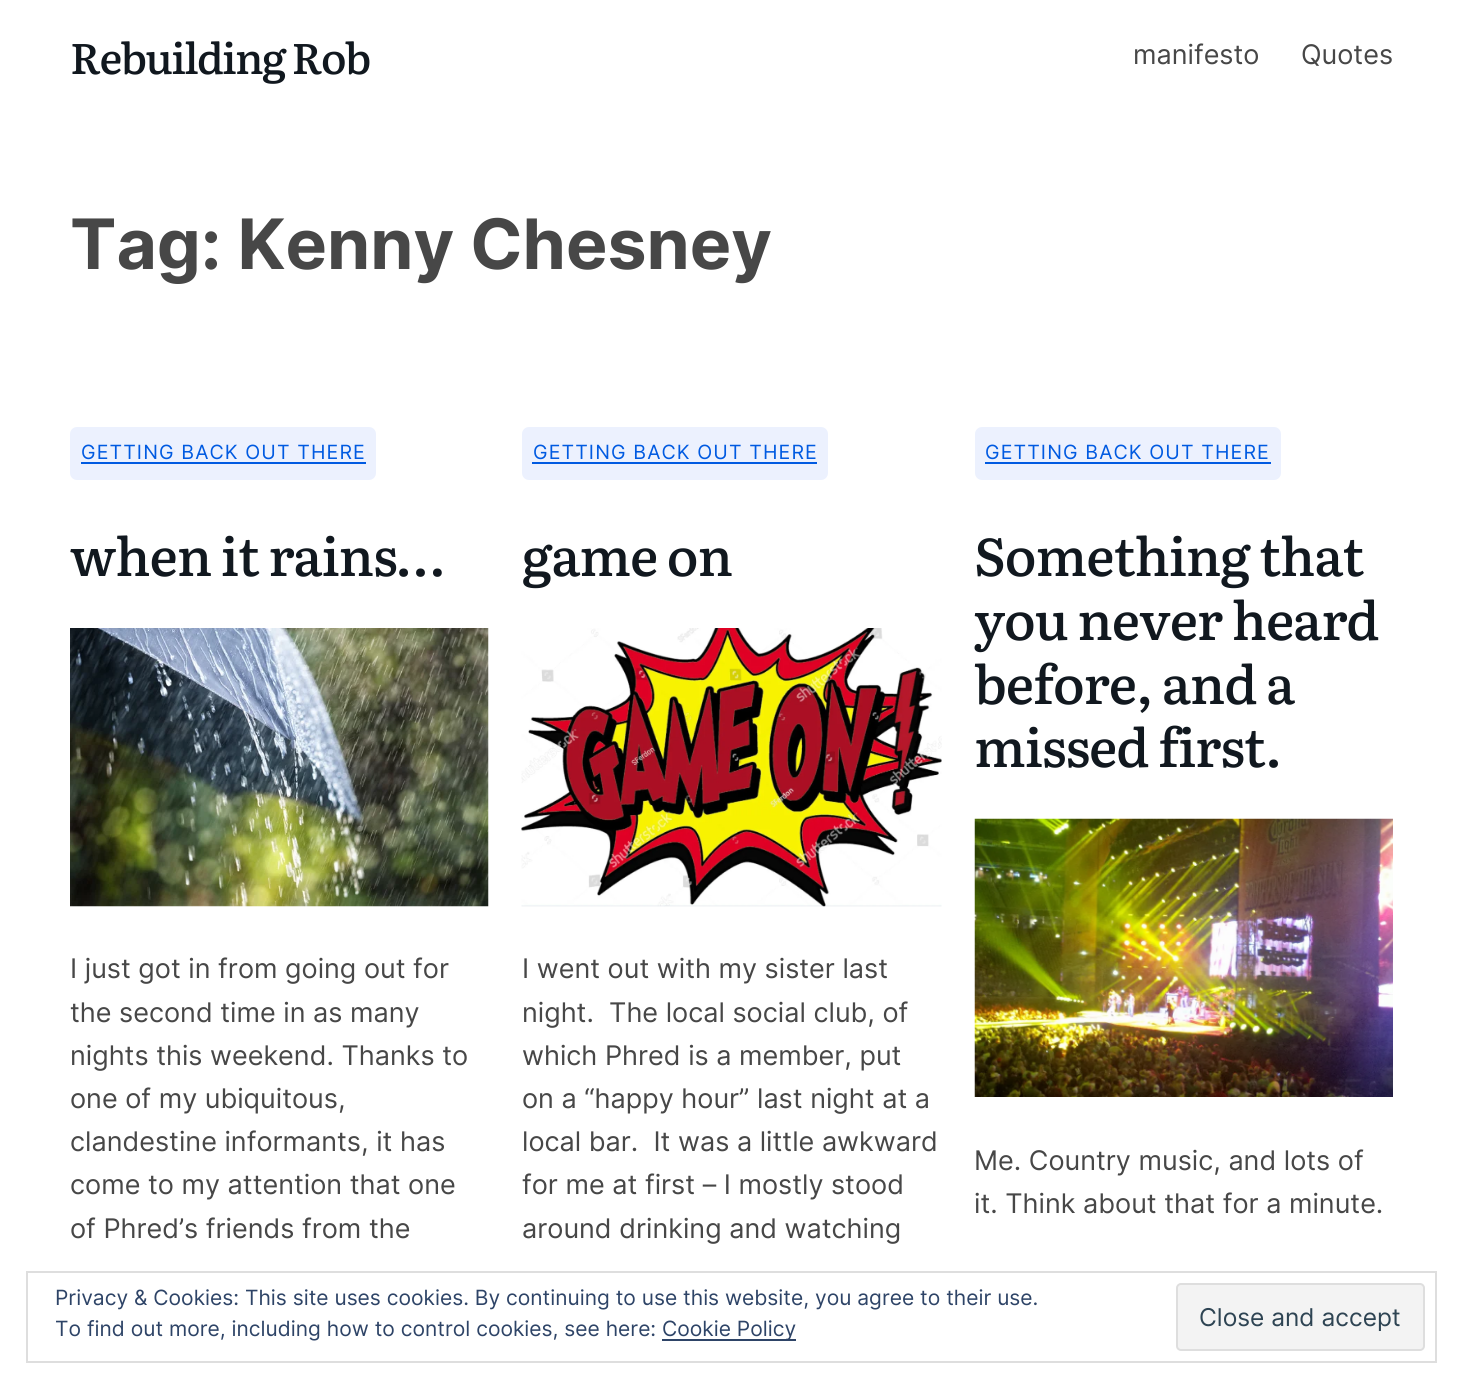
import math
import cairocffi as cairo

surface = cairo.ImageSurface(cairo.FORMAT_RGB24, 1463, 1388)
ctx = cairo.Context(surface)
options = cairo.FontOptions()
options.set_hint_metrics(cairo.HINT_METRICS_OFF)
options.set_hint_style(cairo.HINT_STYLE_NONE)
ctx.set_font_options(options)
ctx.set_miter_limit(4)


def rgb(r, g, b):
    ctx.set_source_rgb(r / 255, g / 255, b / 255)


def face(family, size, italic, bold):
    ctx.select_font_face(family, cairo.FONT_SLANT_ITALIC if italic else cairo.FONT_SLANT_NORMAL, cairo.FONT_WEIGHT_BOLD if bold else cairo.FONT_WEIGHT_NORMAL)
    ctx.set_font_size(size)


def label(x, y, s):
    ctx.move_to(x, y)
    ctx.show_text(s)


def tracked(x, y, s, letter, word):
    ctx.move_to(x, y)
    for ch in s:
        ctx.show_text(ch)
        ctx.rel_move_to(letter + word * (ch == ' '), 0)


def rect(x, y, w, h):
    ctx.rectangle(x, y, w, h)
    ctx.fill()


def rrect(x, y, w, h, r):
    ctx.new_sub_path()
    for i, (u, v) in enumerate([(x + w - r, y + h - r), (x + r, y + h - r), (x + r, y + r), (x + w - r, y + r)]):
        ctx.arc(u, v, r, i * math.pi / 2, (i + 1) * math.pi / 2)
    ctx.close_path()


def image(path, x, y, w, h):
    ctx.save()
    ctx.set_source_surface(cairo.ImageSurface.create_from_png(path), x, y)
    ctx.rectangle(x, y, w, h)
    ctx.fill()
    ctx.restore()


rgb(255, 255, 255)
ctx.paint()
face('Literata Medium', 42.75, 0, 0)
rgb(17, 24, 31)
tracked(70, 74, 'Rebuilding Rob', -1.75, 0)
face('Inter', 27, 0, 0)
rgb(71, 71, 71)
label(1133, 64, 'manifesto')
label(1301, 64, 'Quotes')
face('Inter', 69.5, 0, 1)
label(70, 269, 'Tag: Kenny Chesney')
rgb(236, 241, 254)
rrect(70, 427, 306, 53, 7)
ctx.fill()
face('Inter', 19.6, 0, 0)
rgb(0, 90, 225)
tracked(81, 459, 'GETTING BACK OUT THERE', 1.1, 0)
rect(81, 462, 285, 2)
face('Literata Medium', 53, 0, 0)
rgb(17, 24, 31)
tracked(70, 576, 'when it rains…', -1.1, 0)
image('image0.png', 70, 628, 419, 279)
face('Inter', 27, 0, 0)
rgb(71, 71, 71)
label(70, 978, 'I just got in from going out for')
label(70, 1022, 'the second time in as many')
label(70, 1065, 'nights this weekend. Thanks to')
label(70, 1108, 'one of my ubiquitous,')
label(70, 1151, 'clandestine informants, it has')
label(70, 1194, 'come to my attention that one')
label(70, 1238, 'of Phred’s friends from the')
rgb(236, 241, 254)
rrect(522, 427, 306, 53, 7)
ctx.fill()
face('Inter', 19.6, 0, 0)
rgb(0, 90, 225)
tracked(533, 459, 'GETTING BACK OUT THERE', 1.1, 0)
rect(532, 462, 285, 2)
face('Literata Medium', 53, 0, 0)
rgb(17, 24, 31)
tracked(522, 576, 'game on', -1.1, 0)
image('image1.png', 521, 628, 421, 279)
face('Inter', 27, 0, 0)
rgb(71, 71, 71)
label(522, 978, 'I went out with my sister last')
label(522, 1022, 'night.  The local social club, of')
label(522, 1065, 'which Phred is a member, put')
label(522, 1108, 'on a “happy hour” last night at a')
label(522, 1151, 'local bar.  It was a little awkward')
label(522, 1194, 'for me at first – I mostly stood')
label(522, 1238, 'around drinking and watching')
rgb(236, 241, 254)
rrect(975, 427, 306, 53, 7)
ctx.fill()
face('Inter', 19.6, 0, 0)
rgb(0, 90, 225)
tracked(985, 459, 'GETTING BACK OUT THERE', 1.1, 0)
rect(985, 462, 286, 2)
face('Literata Medium', 53, 0, 0)
rgb(17, 24, 31)
tracked(974, 576, 'Something that', -1.1, 0)
tracked(974, 640, 'you never heard', -1.1, 0)
tracked(974, 704, 'before, and a', -1.1, 0)
tracked(974, 767, 'missed first.', -1.1, 0)
image('image2.png', 974, 818, 419, 279)
face('Inter', 27, 0, 0)
rgb(71, 71, 71)
label(974, 1170, 'Me. Country music, and lots of')
label(974, 1213, 'it. Think about that for a minute.')
ctx.rectangle(27, 1272, 1409, 90)
rgb(222, 222, 222)
ctx.stroke()
face('Inter', 21, 0, 0)
rgb(46, 68, 103)
label(55, 1305, 'Privacy & Cookies: This site uses cookies. By continuing to use this website, you agree to their use.')
label(55, 1336, 'To find out more, including how to control cookies, see here:')
rect(662, 1339, 134, 2)
label(662, 1336, 'Cookie Policy')
rgb(243, 243, 243)
rrect(1177, 1284, 247, 66, 4)
ctx.fill_preserve()
rgb(222, 222, 222)
ctx.stroke()
face('Inter', 24.5, 0, 0)
rgb(46, 68, 83)
label(1199, 1326, 'Close and accept')
surface.write_to_png('render.png')
